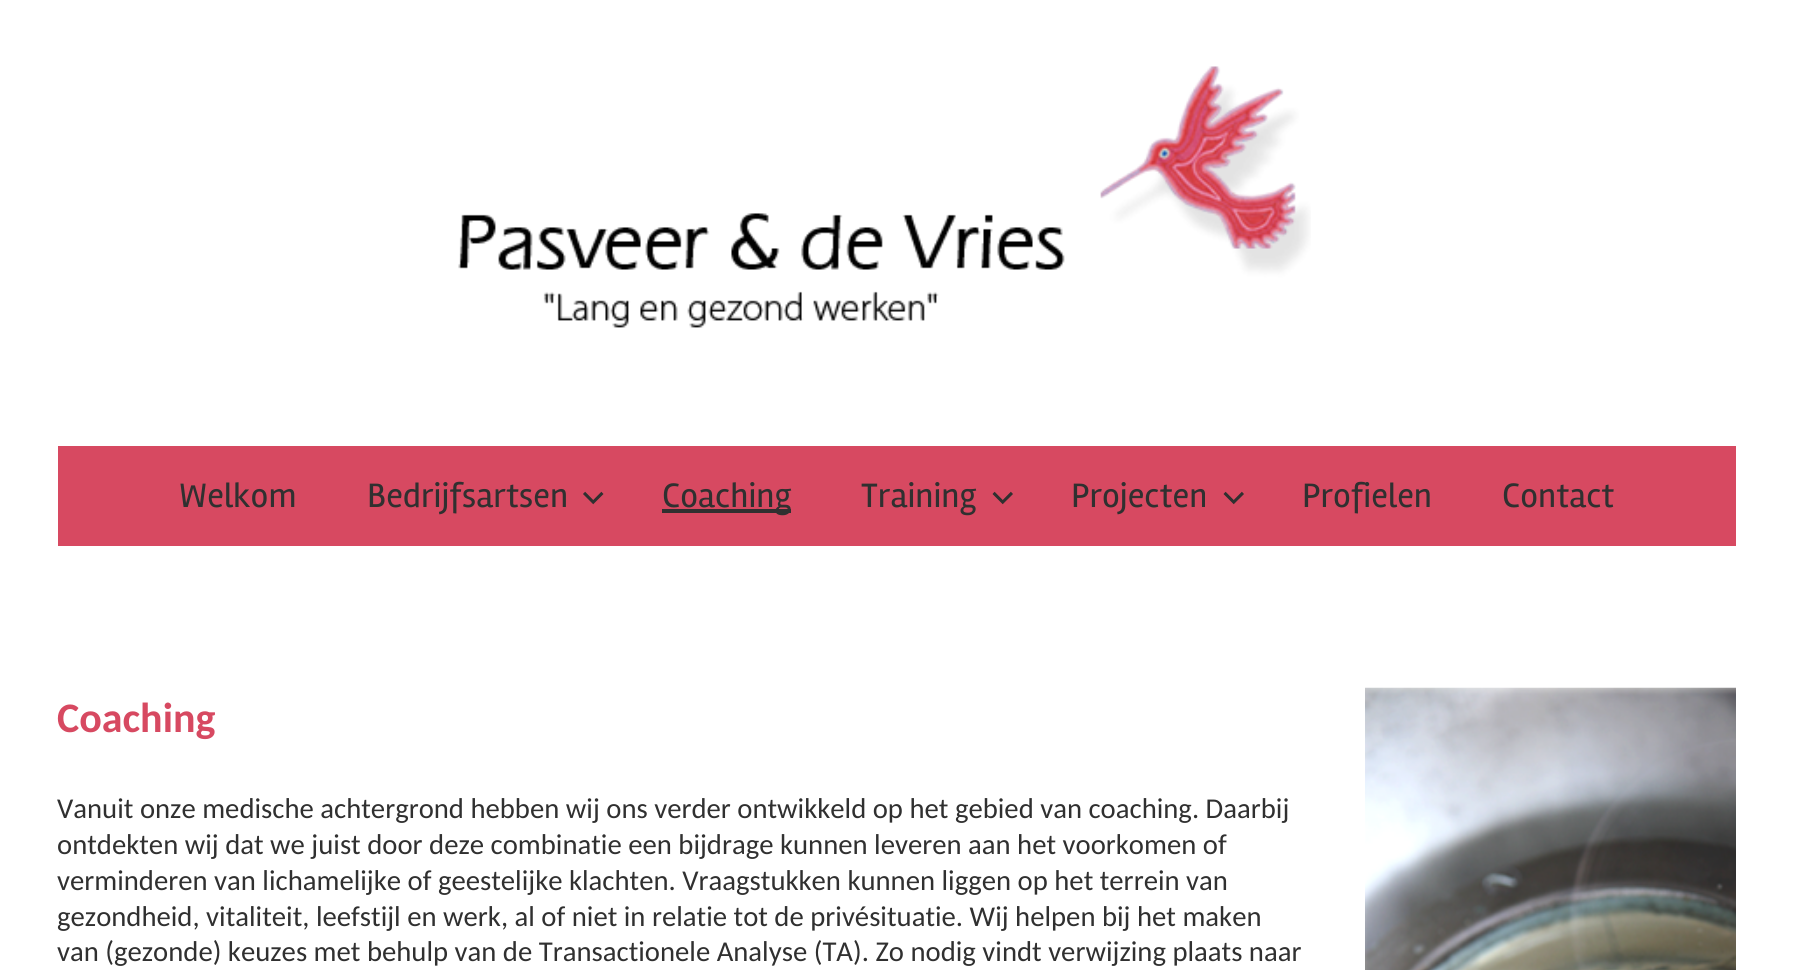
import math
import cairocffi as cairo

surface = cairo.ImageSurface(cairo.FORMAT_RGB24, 1793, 970)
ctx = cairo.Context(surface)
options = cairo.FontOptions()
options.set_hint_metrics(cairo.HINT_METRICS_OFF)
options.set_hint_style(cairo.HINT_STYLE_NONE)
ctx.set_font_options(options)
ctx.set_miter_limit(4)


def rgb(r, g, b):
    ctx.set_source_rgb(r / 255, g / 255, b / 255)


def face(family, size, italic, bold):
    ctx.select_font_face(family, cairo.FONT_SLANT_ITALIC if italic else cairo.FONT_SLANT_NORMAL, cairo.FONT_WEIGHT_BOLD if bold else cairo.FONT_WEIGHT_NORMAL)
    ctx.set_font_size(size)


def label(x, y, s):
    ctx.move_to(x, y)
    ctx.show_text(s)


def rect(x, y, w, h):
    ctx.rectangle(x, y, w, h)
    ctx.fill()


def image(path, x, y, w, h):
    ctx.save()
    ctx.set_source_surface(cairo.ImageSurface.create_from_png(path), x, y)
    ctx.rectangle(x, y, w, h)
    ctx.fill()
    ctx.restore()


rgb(255, 255, 255)
ctx.paint()
rgb(215, 73, 97)
rect(58, 544, 1678, 2)
image('image0.png', 458, 66, 853, 262)
rect(58, 446, 1678, 98)
face('Rambla', 35, 0, 0)
rgb(48, 48, 48)
label(179, 507, 'Welkom')
label(367, 507, 'Bedrijfsartsen')
image('image1.png', 583, 491, 21, 14)
rect(662, 509, 129, 4)
label(662, 507, 'Coaching')
label(861, 507, 'Training')
image('image2.png', 992, 491, 21, 14)
label(1071, 507, 'Projecten')
image('image2.png', 1223, 491, 21, 14)
label(1302, 507, 'Profielen')
label(1502, 507, 'Contact')
face('Carlito', 42, 0, 1)
rgb(215, 73, 97)
label(57, 732, 'Coaching')
image('image3.png', 1365, 687, 371, 283)
face('Carlito', 28.7, 0, 0)
rgb(48, 48, 48)
label(57, 818, 'Vanuit onze medische achtergrond hebben wij ons verder ontwikkeld op het gebied van coaching. Daarbij')
label(57, 854, 'ontdekten wij dat we juist door deze combinatie een bijdrage kunnen leveren aan het voorkomen of')
label(57, 890, 'verminderen van lichamelijke of geestelijke klachten. Vraagstukken kunnen liggen op het terrein van')
label(57, 926, 'gezondheid, vitaliteit, leefstijl en werk, al of niet in relatie tot de privésituatie. Wij helpen bij het maken')
label(57, 961, 'van (gezonde) keuzes met behulp van de Transactionele Analyse (TA). Zo nodig vindt verwijzing plaats naar')
surface.write_to_png('render.png')
